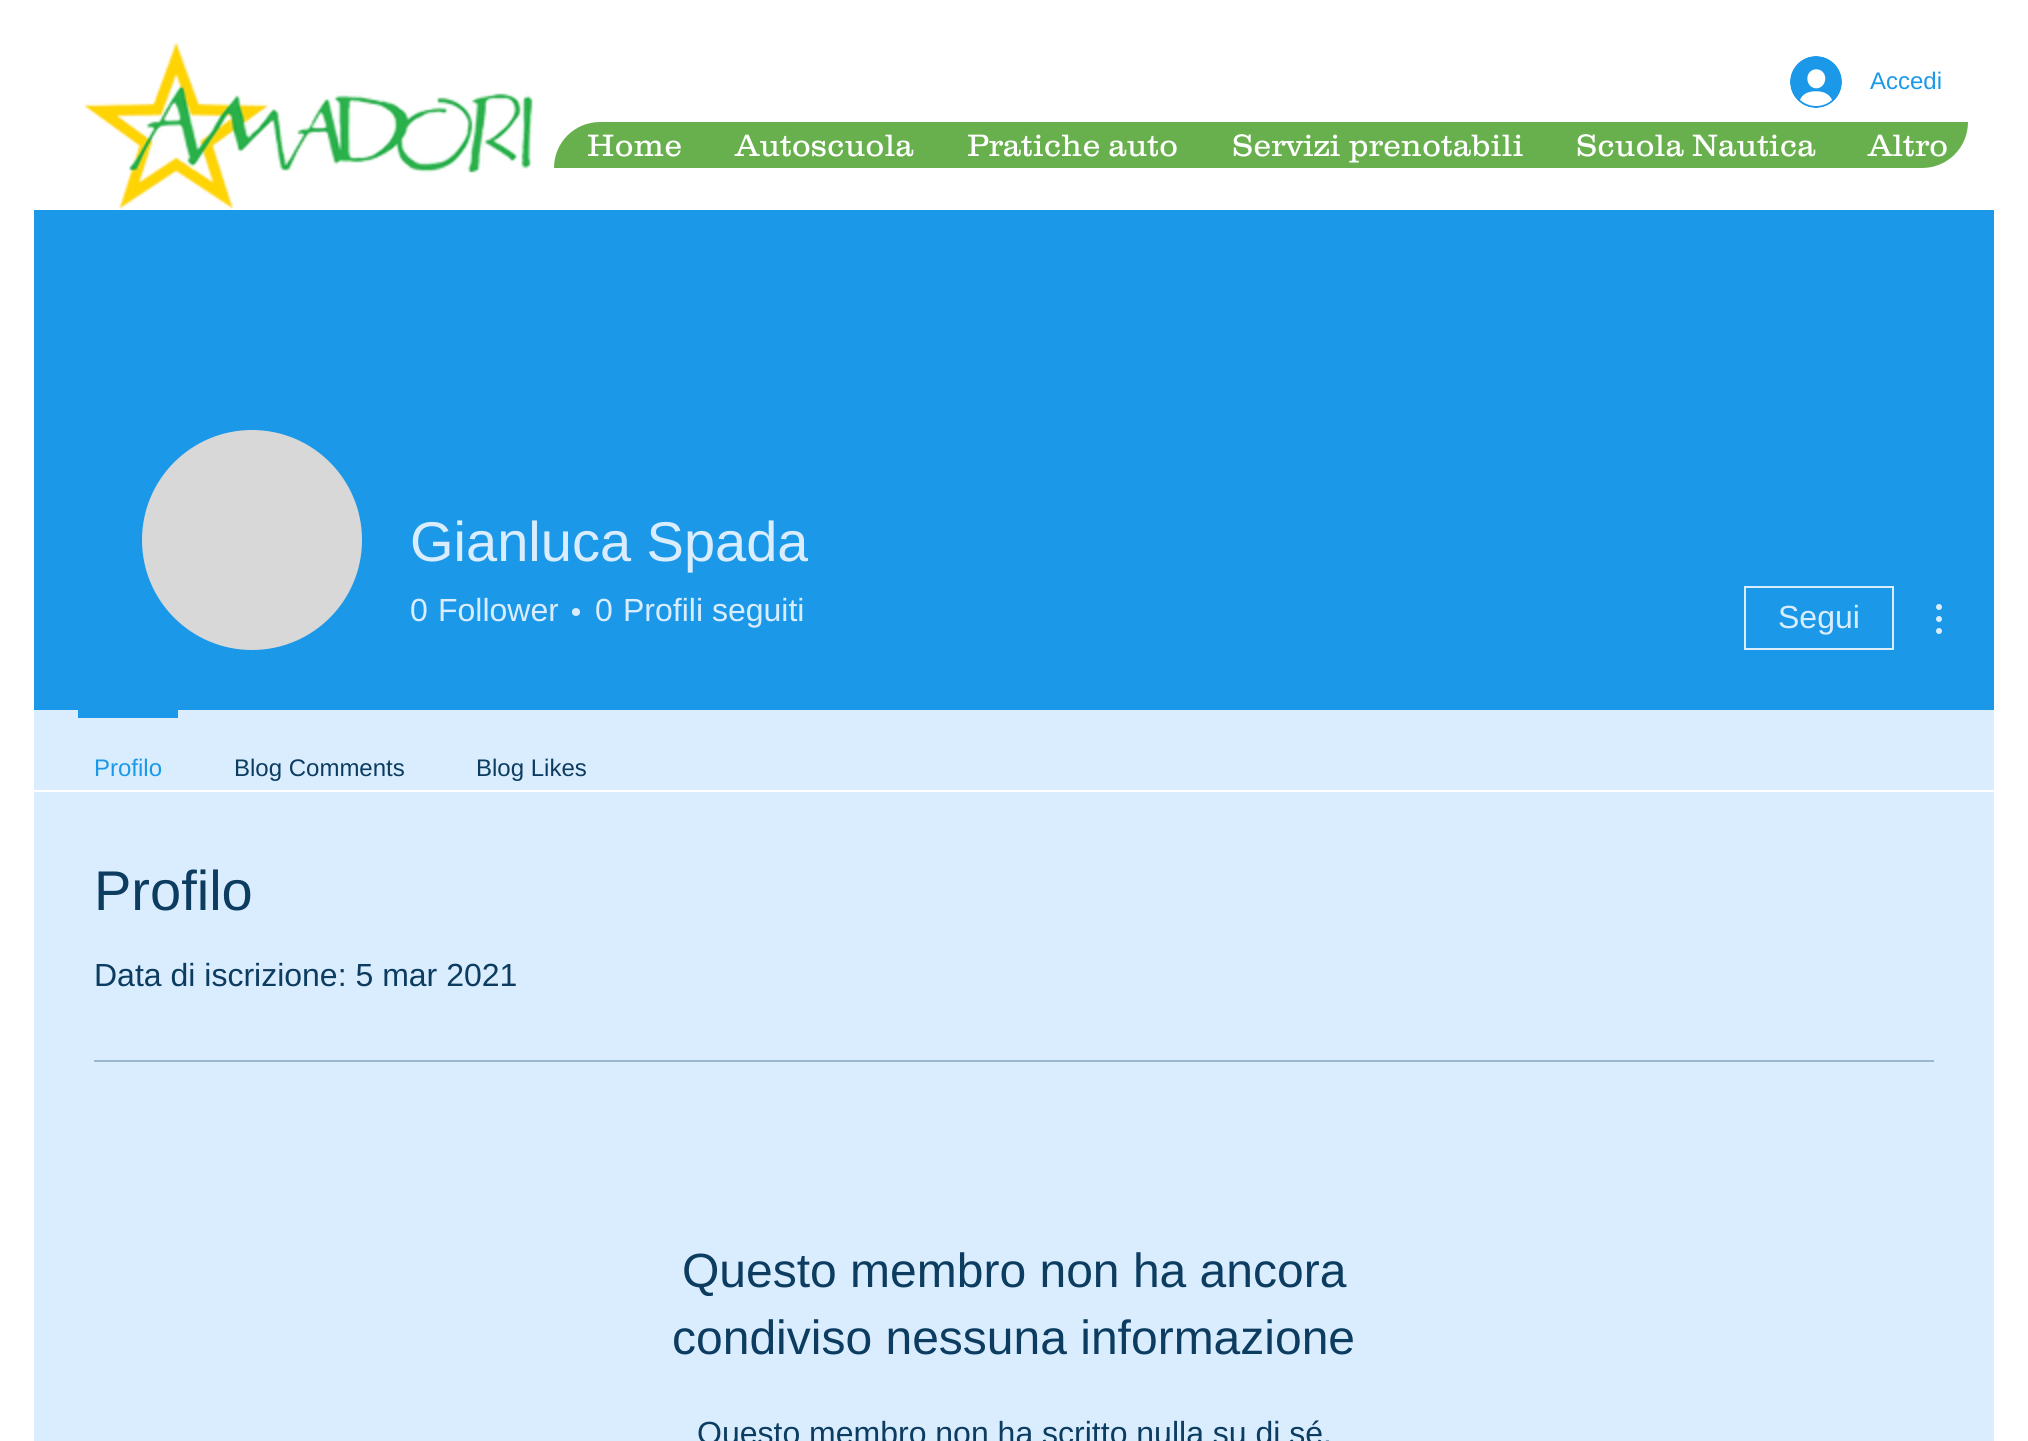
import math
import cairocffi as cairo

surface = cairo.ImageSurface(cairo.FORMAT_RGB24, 2028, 1441)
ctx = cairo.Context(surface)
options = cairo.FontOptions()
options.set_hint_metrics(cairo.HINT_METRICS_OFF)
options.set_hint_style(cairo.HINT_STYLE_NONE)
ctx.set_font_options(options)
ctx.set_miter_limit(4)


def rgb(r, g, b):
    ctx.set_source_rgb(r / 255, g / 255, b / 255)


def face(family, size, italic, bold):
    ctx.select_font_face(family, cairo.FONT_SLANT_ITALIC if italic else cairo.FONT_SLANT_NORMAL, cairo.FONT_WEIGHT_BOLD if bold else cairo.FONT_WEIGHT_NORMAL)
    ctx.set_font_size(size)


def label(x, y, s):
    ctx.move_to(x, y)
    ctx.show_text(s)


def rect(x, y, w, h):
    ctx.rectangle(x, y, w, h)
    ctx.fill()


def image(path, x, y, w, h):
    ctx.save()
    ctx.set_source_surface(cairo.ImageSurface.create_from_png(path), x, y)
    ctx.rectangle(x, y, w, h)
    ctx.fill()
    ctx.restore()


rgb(255, 255, 255)
ctx.paint()
image('image0.png', 83, 42, 450, 168)
image('image1.png', 1790, 56, 52, 52)
face('Liberation Sans', 24, 0, 0)
rgb(27, 153, 232)
label(1870, 89, 'Accedi')
rgb(104, 176, 77)
ctx.new_path()
ctx.move_to(600, 122)
ctx.line_to(1968, 122)
ctx.curve_to(1968, 147.5, 1947.5, 168, 1922, 168)
ctx.line_to(554, 168)
ctx.curve_to(554, 142.5, 574.5, 122, 600, 122)
ctx.close_path()
ctx.fill()
face('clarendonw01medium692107 Light', 32, 0, 0)
rgb(255, 255, 255)
label(587, 156, 'Home')
label(735, 156, 'Autoscuola')
label(967, 156, 'Pratiche auto')
label(1232, 156, 'Servizi prenotabili')
label(1576, 156, 'Scuola Nautica')
label(1868, 156, 'Altro')
rgb(27, 153, 232)
rect(34, 210, 1960, 500)
rgb(216, 216, 216)
ctx.new_path()
ctx.arc(252, 540, 110, 0, 2 * math.pi)
ctx.fill()
ctx.save()
ctx.rectangle(410, 502, 398, 80)
ctx.clip()
face('Liberation Sans', 56, 0, 0)
rgb(218, 237, 255)
label(410, 561, 'Gianluca Spada')
ctx.restore()
face('Liberation Sans', 32, 0, 0)
rgb(218, 237, 255)
label(410, 621, '0')
ctx.save()
ctx.rectangle(438, 590, 120, 44)
ctx.clip()
label(438, 621, 'Follower')
ctx.restore()
ctx.new_path()
ctx.arc(576, 612, 4, 0, 2 * math.pi)
ctx.fill()
label(595, 621, '0')
label(623, 621, 'Profili seguiti')
ctx.rectangle(1745, 587, 148, 62)
ctx.stroke()
label(1778, 628, 'Segui')
image('image2.png', 1936, 604, 6, 30)
rect(34, 710, 1960, 80)
rgb(27, 153, 232)
rect(78, 710, 100, 8)
face('Liberation Sans', 24, 0, 0)
label(94, 776, 'Profilo')
rgb(12, 60, 96)
label(234, 776, 'Blog Comments')
label(476, 776, 'Blog Likes')
rgb(218, 237, 255)
rect(34, 792, 1960, 649)
face('Liberation Sans', 56, 0, 0)
rgb(12, 60, 96)
label(94, 910, 'Profilo')
face('Liberation Sans', 32, 0, 0)
label(94, 986, 'Data di iscrizione: 5 mar 2021')
rgb(156, 184, 207)
rect(94, 1060, 1840, 2)
face('Liberation Sans', 48, 0, 0)
rgb(12, 60, 96)
label(682, 1287, 'Questo membro non ha ancora')
label(672, 1354, 'condiviso nessuna informazione')
face('Liberation Sans', 32, 0, 0)
label(697, 1444, 'Questo membro non ha scritto nulla su di sé.')
surface.write_to_png('render.png')
